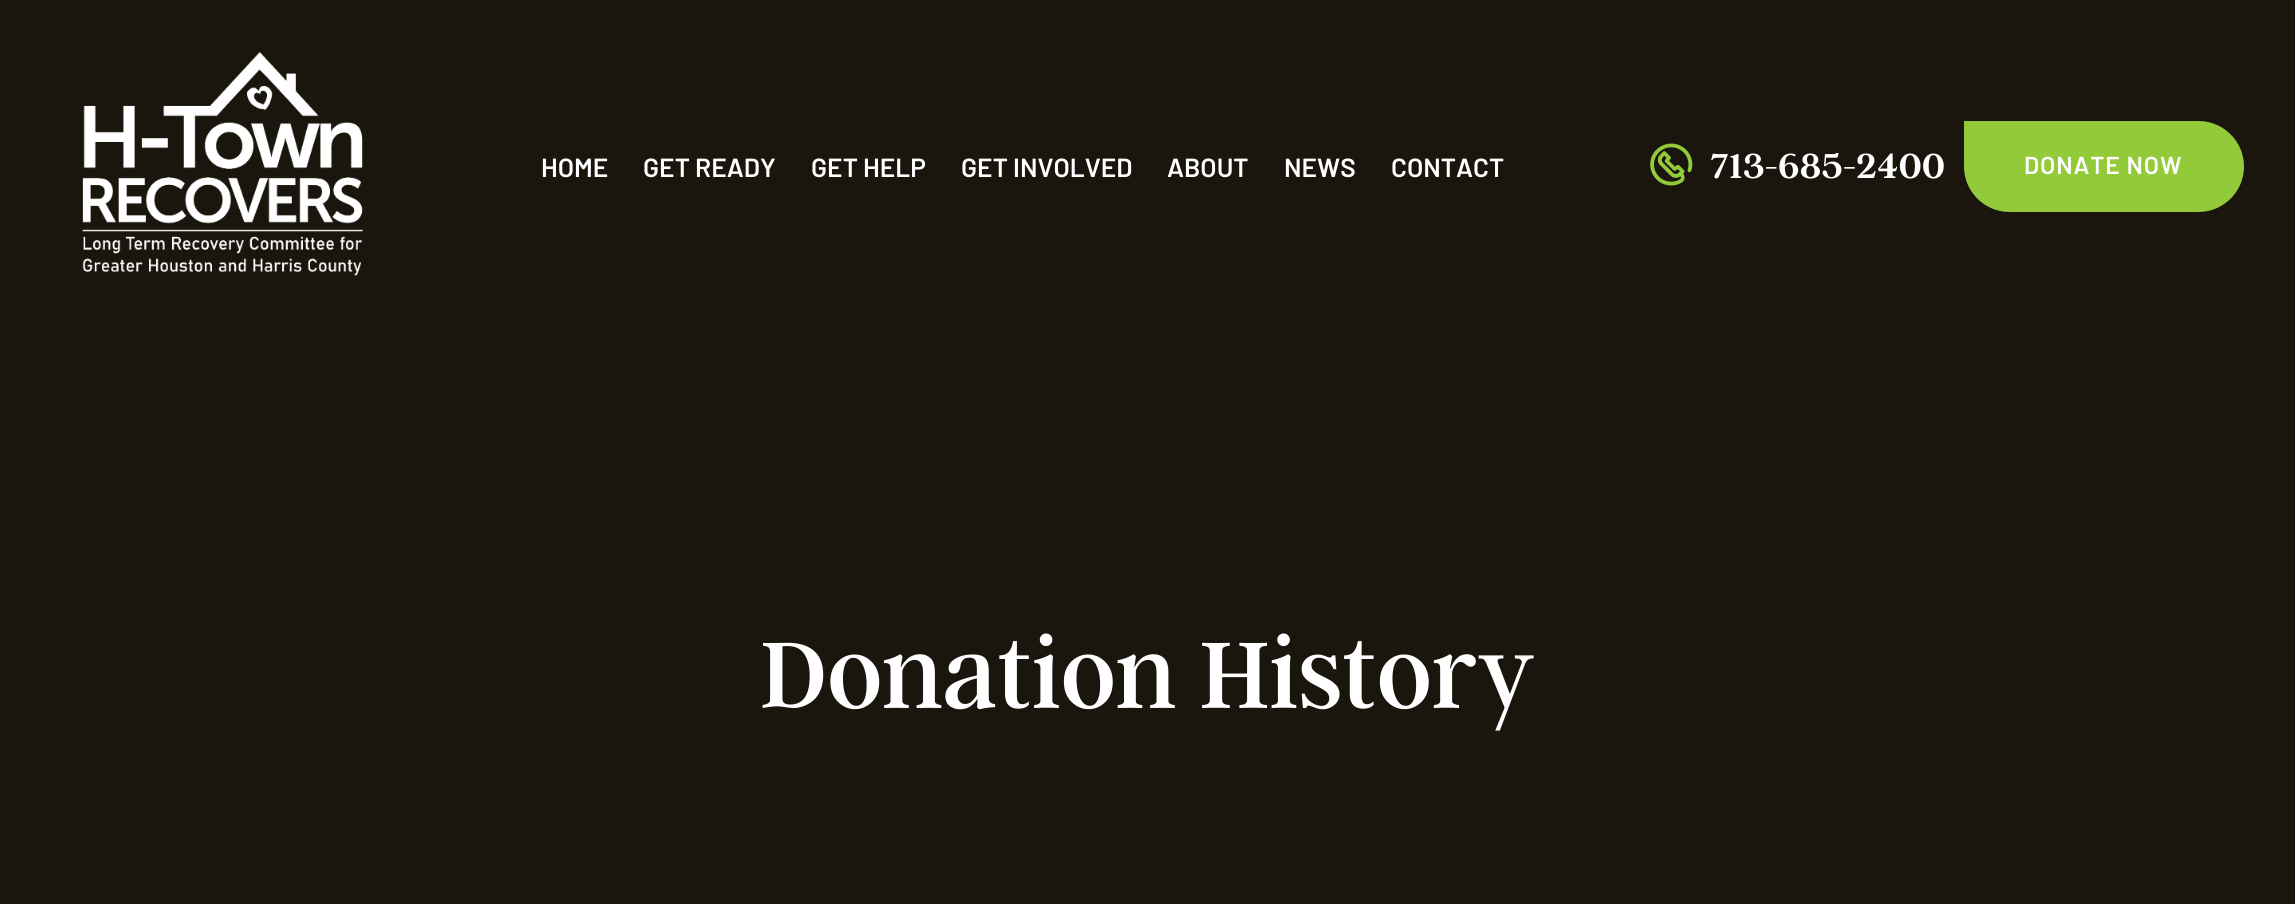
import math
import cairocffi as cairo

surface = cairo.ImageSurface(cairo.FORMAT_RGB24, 2295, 904)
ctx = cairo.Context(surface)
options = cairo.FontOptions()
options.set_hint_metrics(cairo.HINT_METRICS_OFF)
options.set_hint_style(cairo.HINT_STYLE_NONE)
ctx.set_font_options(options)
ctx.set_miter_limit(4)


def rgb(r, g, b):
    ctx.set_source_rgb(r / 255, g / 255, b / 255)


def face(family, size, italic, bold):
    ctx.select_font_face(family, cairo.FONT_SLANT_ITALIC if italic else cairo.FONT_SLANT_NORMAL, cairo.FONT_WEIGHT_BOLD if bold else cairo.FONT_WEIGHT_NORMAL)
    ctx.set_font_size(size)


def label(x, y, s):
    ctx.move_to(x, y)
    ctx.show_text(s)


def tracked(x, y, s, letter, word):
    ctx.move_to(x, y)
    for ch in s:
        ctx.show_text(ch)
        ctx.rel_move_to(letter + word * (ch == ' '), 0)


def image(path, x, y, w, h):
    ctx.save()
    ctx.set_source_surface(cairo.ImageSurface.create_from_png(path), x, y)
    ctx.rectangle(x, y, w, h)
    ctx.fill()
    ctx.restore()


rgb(26, 22, 14)
ctx.paint()
image('image0.png', 82, 52, 281, 224)
face('Barlow SemiBold', 26.25, 0, 0)
rgb(255, 255, 255)
label(541, 177, 'HOME')
label(643, 177, 'GET READY')
label(811, 177, 'GET HELP')
label(961, 177, 'GET INVOLVED')
label(1167, 177, 'ABOUT')
label(1284, 177, 'NEWS')
label(1391, 177, 'CONTACT')
image('image1.png', 1650, 143, 43, 43)
face('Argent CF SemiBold', 38.5, 0, 0)
label(1710, 178, '713-685-2400')
rgb(147, 202, 58)
ctx.new_path()
ctx.move_to(1965, 122)
ctx.line_to(2198.5, 122)
ctx.curve_to(2223, 122, 2243, 142, 2243, 166.5)
ctx.curve_to(2243, 191, 2223, 211, 2198.5, 211)
ctx.line_to(2009.5, 211)
ctx.curve_to(1985, 211, 1965, 191, 1965, 166.5)
ctx.close_path()
ctx.fill_preserve()
ctx.stroke()
face('Barlow SemiBold', 24.5, 0, 0)
rgb(255, 255, 255)
tracked(2024, 174, 'DONATE NOW', 0.9, 0)
face('Argent CF', 105, 0, 0)
label(760, 708, 'Donation History')
surface.write_to_png('render.png')
